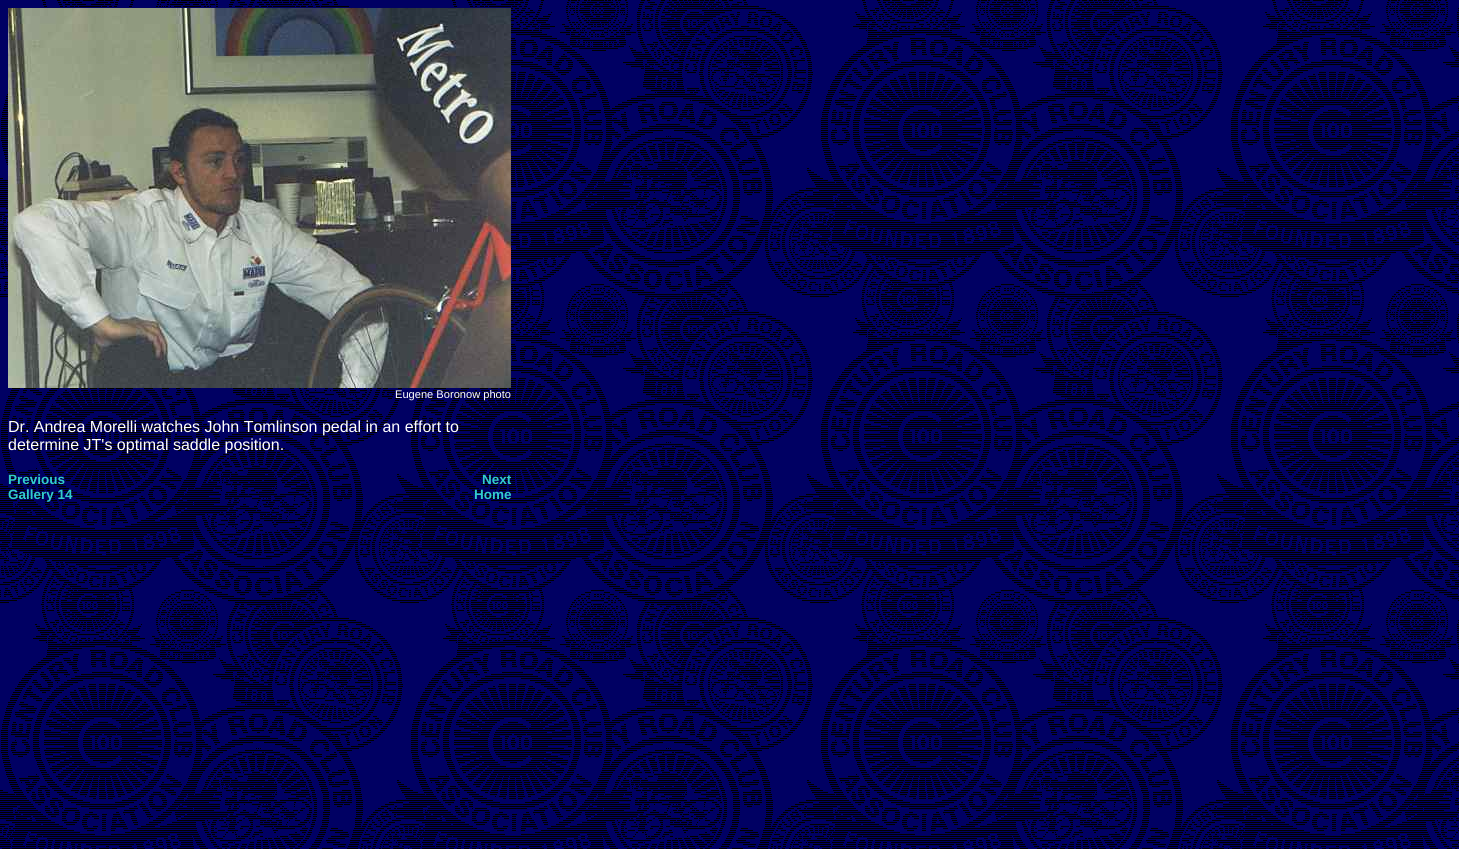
import math
import cairocffi as cairo

surface = cairo.ImageSurface(cairo.FORMAT_RGB24, 1459, 849)
ctx = cairo.Context(surface)
options = cairo.FontOptions()
options.set_hint_metrics(cairo.HINT_METRICS_OFF)
options.set_hint_style(cairo.HINT_STYLE_NONE)
ctx.set_font_options(options)
ctx.set_miter_limit(4)


def rgb(r, g, b):
    ctx.set_source_rgb(r / 255, g / 255, b / 255)


def face(family, size, italic, bold):
    ctx.select_font_face(family, cairo.FONT_SLANT_ITALIC if italic else cairo.FONT_SLANT_NORMAL, cairo.FONT_WEIGHT_BOLD if bold else cairo.FONT_WEIGHT_NORMAL)
    ctx.set_font_size(size)


def label(x, y, s):
    ctx.move_to(x, y)
    ctx.show_text(s)


def image(path, x, y, w, h):
    ctx.save()
    ctx.set_source_surface(cairo.ImageSurface.create_from_png(path), x, y)
    ctx.rectangle(x, y, w, h)
    ctx.fill()
    ctx.restore()


rgb(255, 255, 255)
ctx.paint()
image('image0.png', 0, 0, 1459, 849)
image('image1.png', 8, 8, 503, 380)
face('Liberation Sans', 11.1, 0, 0)
rgb(255, 255, 255)
label(395, 398, 'Eugene Boronow photo')
face('Liberation Sans', 16, 0, 0)
label(8, 432, 'Dr. Andrea Morelli watches John Tomlinson pedal in an effort to')
label(8, 450, 'determine JT\'s optimal saddle position.')
face('Liberation Sans', 13.5, 0, 1)
rgb(51, 204, 204)
label(8, 484, 'Previous')
label(482, 484, 'Next')
label(8, 499, 'Gallery 14')
label(474, 499, 'Home')
surface.write_to_png('render.png')
